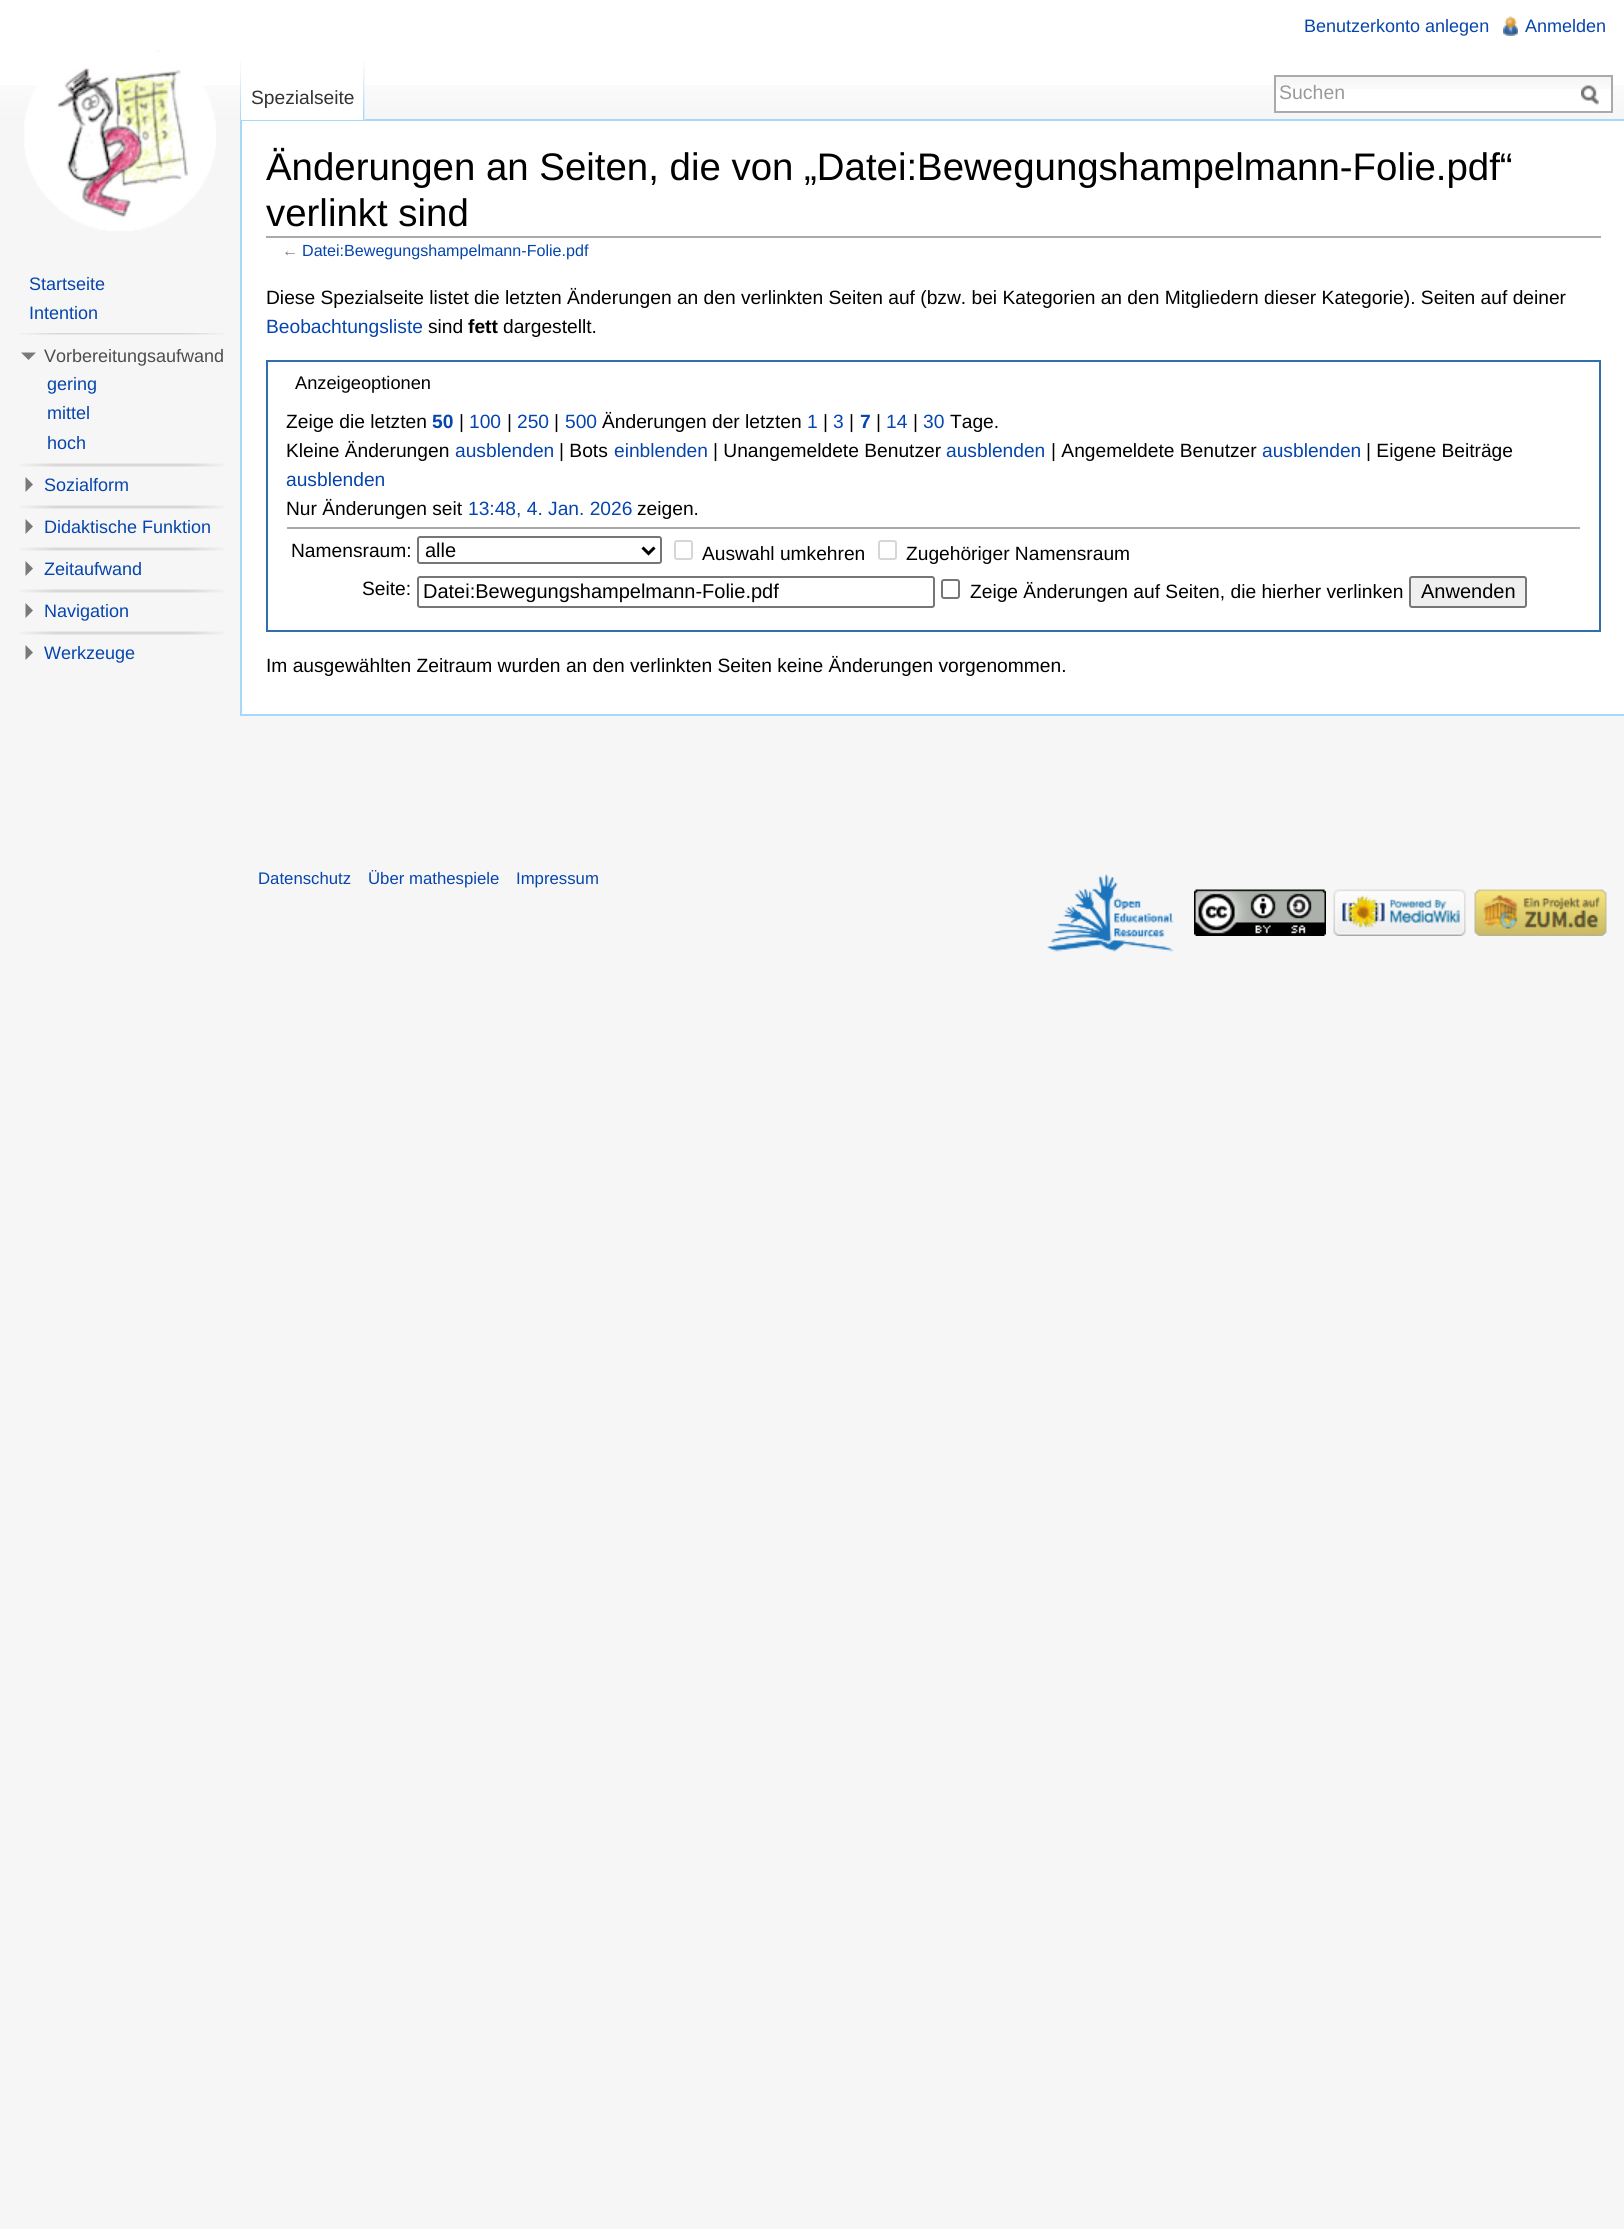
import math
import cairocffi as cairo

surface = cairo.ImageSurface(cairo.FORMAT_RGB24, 1624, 2229)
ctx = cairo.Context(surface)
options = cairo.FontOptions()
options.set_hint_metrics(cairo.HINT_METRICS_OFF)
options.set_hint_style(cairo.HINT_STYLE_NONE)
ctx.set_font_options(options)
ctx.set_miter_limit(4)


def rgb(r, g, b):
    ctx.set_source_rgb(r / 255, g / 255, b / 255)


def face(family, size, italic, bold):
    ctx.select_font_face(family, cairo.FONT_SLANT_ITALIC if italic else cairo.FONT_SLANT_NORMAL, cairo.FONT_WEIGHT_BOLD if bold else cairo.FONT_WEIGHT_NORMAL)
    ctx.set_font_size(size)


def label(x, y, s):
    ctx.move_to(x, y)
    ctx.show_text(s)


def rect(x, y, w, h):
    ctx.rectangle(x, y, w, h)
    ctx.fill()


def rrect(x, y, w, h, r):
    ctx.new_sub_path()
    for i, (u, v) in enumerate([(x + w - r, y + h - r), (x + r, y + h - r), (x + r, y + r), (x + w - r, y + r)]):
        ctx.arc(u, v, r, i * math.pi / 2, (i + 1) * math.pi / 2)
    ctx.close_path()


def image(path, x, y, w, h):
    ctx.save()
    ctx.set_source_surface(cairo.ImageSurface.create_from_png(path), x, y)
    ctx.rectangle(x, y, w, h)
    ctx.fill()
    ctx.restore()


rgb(246, 246, 246)
ctx.paint()
rgb(255, 255, 255)
rect(0, 0, 1624, 85)
image('image0.png', 0, 85, 1624, 35)
face('Liberation Sans', 18, 0, 0)
rgb(6, 69, 173)
label(1304, 32, 'Benutzerkonto anlegen')
image('image1.png', 1503, 16, 15, 20)
label(1525, 32, 'Anmelden')
image('image2.png', 240, 60, 1, 59)
rgb(167, 215, 249)
rect(240, 119, 1384, 2)
rect(240, 714, 1384, 2)
rect(240, 119, 2, 597)
rgb(255, 255, 255)
rect(241, 85, 124, 35)
image('image3.png', 363, 61, 2, 59)
face('Liberation Sans', 19.2, 0, 0)
rgb(51, 51, 51)
label(251, 104, 'Spezialseite')
rgb(255, 255, 255)
rect(1276, 89, 335, 22)
image('image4.png', 1273, 76, 338, 13)
ctx.rectangle(1275, 76, 337, 36)
rgb(170, 170, 170)
ctx.stroke()
face('Liberation Sans', 19.5, 0, 0)
rgb(153, 153, 153)
label(1279, 99, 'Suchen')
image('image5.png', 1581, 85, 18, 20)
image('image6.png', 24, 50, 192, 181)
face('Liberation Sans', 18, 0, 0)
rgb(6, 69, 173)
label(29, 290, 'Startseite')
label(29, 319, 'Intention')
image('image7.png', 20, 333, 204, 2)
rgb(121, 121, 121)
ctx.new_path()
ctx.move_to(36, 352.5)
ctx.line_to(28.5, 360)
ctx.line_to(21, 352.5)
ctx.close_path()
ctx.fill()
rgb(77, 77, 77)
label(44, 362, 'Vorbereitungsaufwand')
rgb(6, 69, 173)
label(47, 390, 'gering')
label(47, 419, 'mittel')
label(47, 449, 'hoch')
image('image8.png', 20, 463, 204, 4)
rgb(121, 121, 121)
ctx.new_path()
ctx.move_to(25.5, 477)
ctx.line_to(33, 484.5)
ctx.line_to(25.5, 492)
ctx.close_path()
ctx.fill()
rgb(6, 69, 173)
label(44, 491, 'Sozialform')
image('image8.png', 20, 505, 204, 4)
rgb(121, 121, 121)
ctx.new_path()
ctx.move_to(25.5, 519)
ctx.line_to(33, 526.5)
ctx.line_to(25.5, 534)
ctx.close_path()
ctx.fill()
rgb(6, 69, 173)
label(44, 533, 'Didaktische Funktion')
image('image8.png', 20, 547, 204, 4)
rgb(121, 121, 121)
ctx.new_path()
ctx.move_to(25.5, 561)
ctx.line_to(33, 568.5)
ctx.line_to(25.5, 576)
ctx.close_path()
ctx.fill()
rgb(6, 69, 173)
label(44, 575, 'Zeitaufwand')
image('image8.png', 20, 589, 204, 4)
rgb(121, 121, 121)
ctx.new_path()
ctx.move_to(25.5, 603)
ctx.line_to(33, 610.5)
ctx.line_to(25.5, 618)
ctx.close_path()
ctx.fill()
rgb(6, 69, 173)
label(44, 617, 'Navigation')
image('image8.png', 20, 631, 204, 4)
rgb(121, 121, 121)
ctx.new_path()
ctx.move_to(25.5, 645)
ctx.line_to(33, 652.5)
ctx.line_to(25.5, 660)
ctx.close_path()
ctx.fill()
rgb(6, 69, 173)
label(44, 659, 'Werkzeuge')
rgb(255, 255, 255)
rect(242, 121, 1382, 593)
rgb(170, 170, 170)
rect(266, 236, 1335, 2)
face('Liberation Sans', 38.4, 0, 0)
rgb(0, 0, 0)
label(266, 180, 'Änderungen an Seiten, die von „Datei:Bewegungshampelmann-Folie.pdf“')
label(266, 226, 'verlinkt sind')
face('Liberation Sans', 16.1, 0, 0)
rgb(125, 125, 125)
label(282, 256, '←')
rgb(6, 69, 173)
label(302, 256, 'Datei:Bewegungshampelmann-Folie.pdf')
face('Liberation Sans', 19.2, 0, 0)
rgb(0, 0, 0)
label(266, 304, 'Diese Spezialseite listet die letzten Änderungen an den verlinkten Seiten auf (bzw. bei Kategorien an den Mitgliedern dieser Kategorie). Seiten auf deiner')
rgb(6, 69, 173)
label(266, 333, 'Beobachtungsliste')
rgb(0, 0, 0)
label(428, 333, 'sind')
face('Liberation Sans', 19.2, 0, 1)
label(468, 333, 'fett')
face('Liberation Sans', 19.2, 0, 0)
label(503, 333, 'dargestellt.')
ctx.rectangle(267, 361, 1333, 270)
rgb(47, 111, 171)
ctx.stroke()
face('Liberation Sans', 18.25, 0, 0)
rgb(0, 0, 0)
label(295, 389, 'Anzeigeoptionen')
face('Liberation Sans', 19.2, 0, 0)
label(286, 428, 'Zeige die letzten')
face('Liberation Sans', 19.2, 0, 1)
rgb(6, 69, 173)
label(432, 428, '50')
face('Liberation Sans', 19.2, 0, 0)
rgb(0, 0, 0)
label(459, 428, '|')
rgb(6, 69, 173)
label(469, 428, '100')
rgb(0, 0, 0)
label(507, 428, '|')
rgb(6, 69, 173)
label(517, 428, '250')
rgb(0, 0, 0)
label(554, 428, '|')
rgb(6, 69, 173)
label(565, 428, '500')
rgb(0, 0, 0)
label(602, 428, 'Änderungen der letzten')
rgb(6, 69, 173)
label(807, 428, '1')
rgb(0, 0, 0)
label(823, 428, '|')
rgb(6, 69, 173)
label(833, 428, '3')
rgb(0, 0, 0)
label(849, 428, '|')
face('Liberation Sans', 19.2, 0, 1)
rgb(6, 69, 173)
label(860, 428, '7')
face('Liberation Sans', 19.2, 0, 0)
rgb(0, 0, 0)
label(876, 428, '|')
rgb(6, 69, 173)
label(886, 428, '14')
rgb(0, 0, 0)
label(913, 428, '|')
rgb(6, 69, 173)
label(923, 428, '30')
rgb(0, 0, 0)
label(950, 428, 'Tage.')
label(286, 457, 'Kleine Änderungen')
rgb(6, 69, 173)
label(455, 457, 'ausblenden')
rgb(0, 0, 0)
label(559, 457, '| Bots')
rgb(6, 69, 173)
label(614, 457, 'einblenden')
rgb(0, 0, 0)
label(713, 457, '| Unangemeldete Benutzer')
rgb(6, 69, 173)
label(946, 457, 'ausblenden')
rgb(0, 0, 0)
label(1051, 457, '| Angemeldete Benutzer')
rgb(6, 69, 173)
label(1262, 457, 'ausblenden')
rgb(0, 0, 0)
label(1366, 457, '| Eigene Beiträge')
rgb(6, 69, 173)
label(286, 486, 'ausblenden')
rgb(0, 0, 0)
label(286, 515, 'Nur Änderungen seit')
rgb(6, 69, 173)
label(468, 515, '13:48, 4. Jan. 2026')
rgb(0, 0, 0)
label(637, 515, 'zeigen.')
rgb(170, 170, 170)
rect(287, 527, 1293, 2)
rgb(0, 0, 0)
label(291, 557, 'Namensraum:')
rrect(418, 537, 243, 26, 2)
rgb(118, 118, 118)
ctx.stroke()
ctx.new_path()
ctx.move_to(642.5, 547.5)
ctx.line_to(648.5, 553.5)
ctx.line_to(654.5, 547.5)
rgb(0, 0, 0)
ctx.set_line_width(3)
ctx.stroke()
face('Liberation Sans', 20, 0, 0)
label(425, 557, 'alle')
rrect(675, 541, 17, 18, 2)
rgb(214, 214, 214)
ctx.set_line_width(2)
ctx.stroke()
face('Liberation Sans', 19.2, 0, 0)
rgb(0, 0, 0)
label(702, 560, 'Auswahl umkehren')
rrect(879, 541, 17, 18, 2)
rgb(214, 214, 214)
ctx.stroke()
rgb(0, 0, 0)
label(906, 560, 'Zugehöriger Namensraum')
label(362, 595, 'Seite:')
rrect(418, 577, 516, 30, 2)
rgb(118, 118, 118)
ctx.stroke()
face('Liberation Sans', 20, 0, 0)
rgb(0, 0, 0)
label(423, 598, 'Datei:Bewegungshampelmann-Folie.pdf')
rrect(942, 580, 17, 18, 2)
rgb(118, 118, 118)
ctx.stroke()
face('Liberation Sans', 19.2, 0, 0)
rgb(0, 0, 0)
label(970, 598, 'Zeige Änderungen auf Seiten, die hierher verlinken')
rgb(239, 239, 239)
rrect(1410, 577, 116, 30, 2)
ctx.fill_preserve()
rgb(118, 118, 118)
ctx.stroke()
face('Liberation Sans', 20, 0, 0)
rgb(0, 0, 0)
label(1421, 598, 'Anwenden')
face('Liberation Sans', 19.2, 0, 0)
label(266, 672, 'Im ausgewählten Zeitraum wurden an den verlinkten Seiten keine Änderungen vorgenommen.')
face('Liberation Sans', 16.75, 0, 0)
rgb(6, 69, 173)
label(258, 884, 'Datenschutz')
label(368, 884, 'Über mathespiele')
label(516, 884, 'Impressum')
image('image9.png', 1047, 874, 127, 78)
image('image10.png', 1194, 889, 132, 47)
image('image11.png', 1333, 889, 133, 47)
image('image12.png', 1474, 889, 133, 47)
surface.write_to_png('render.png')
